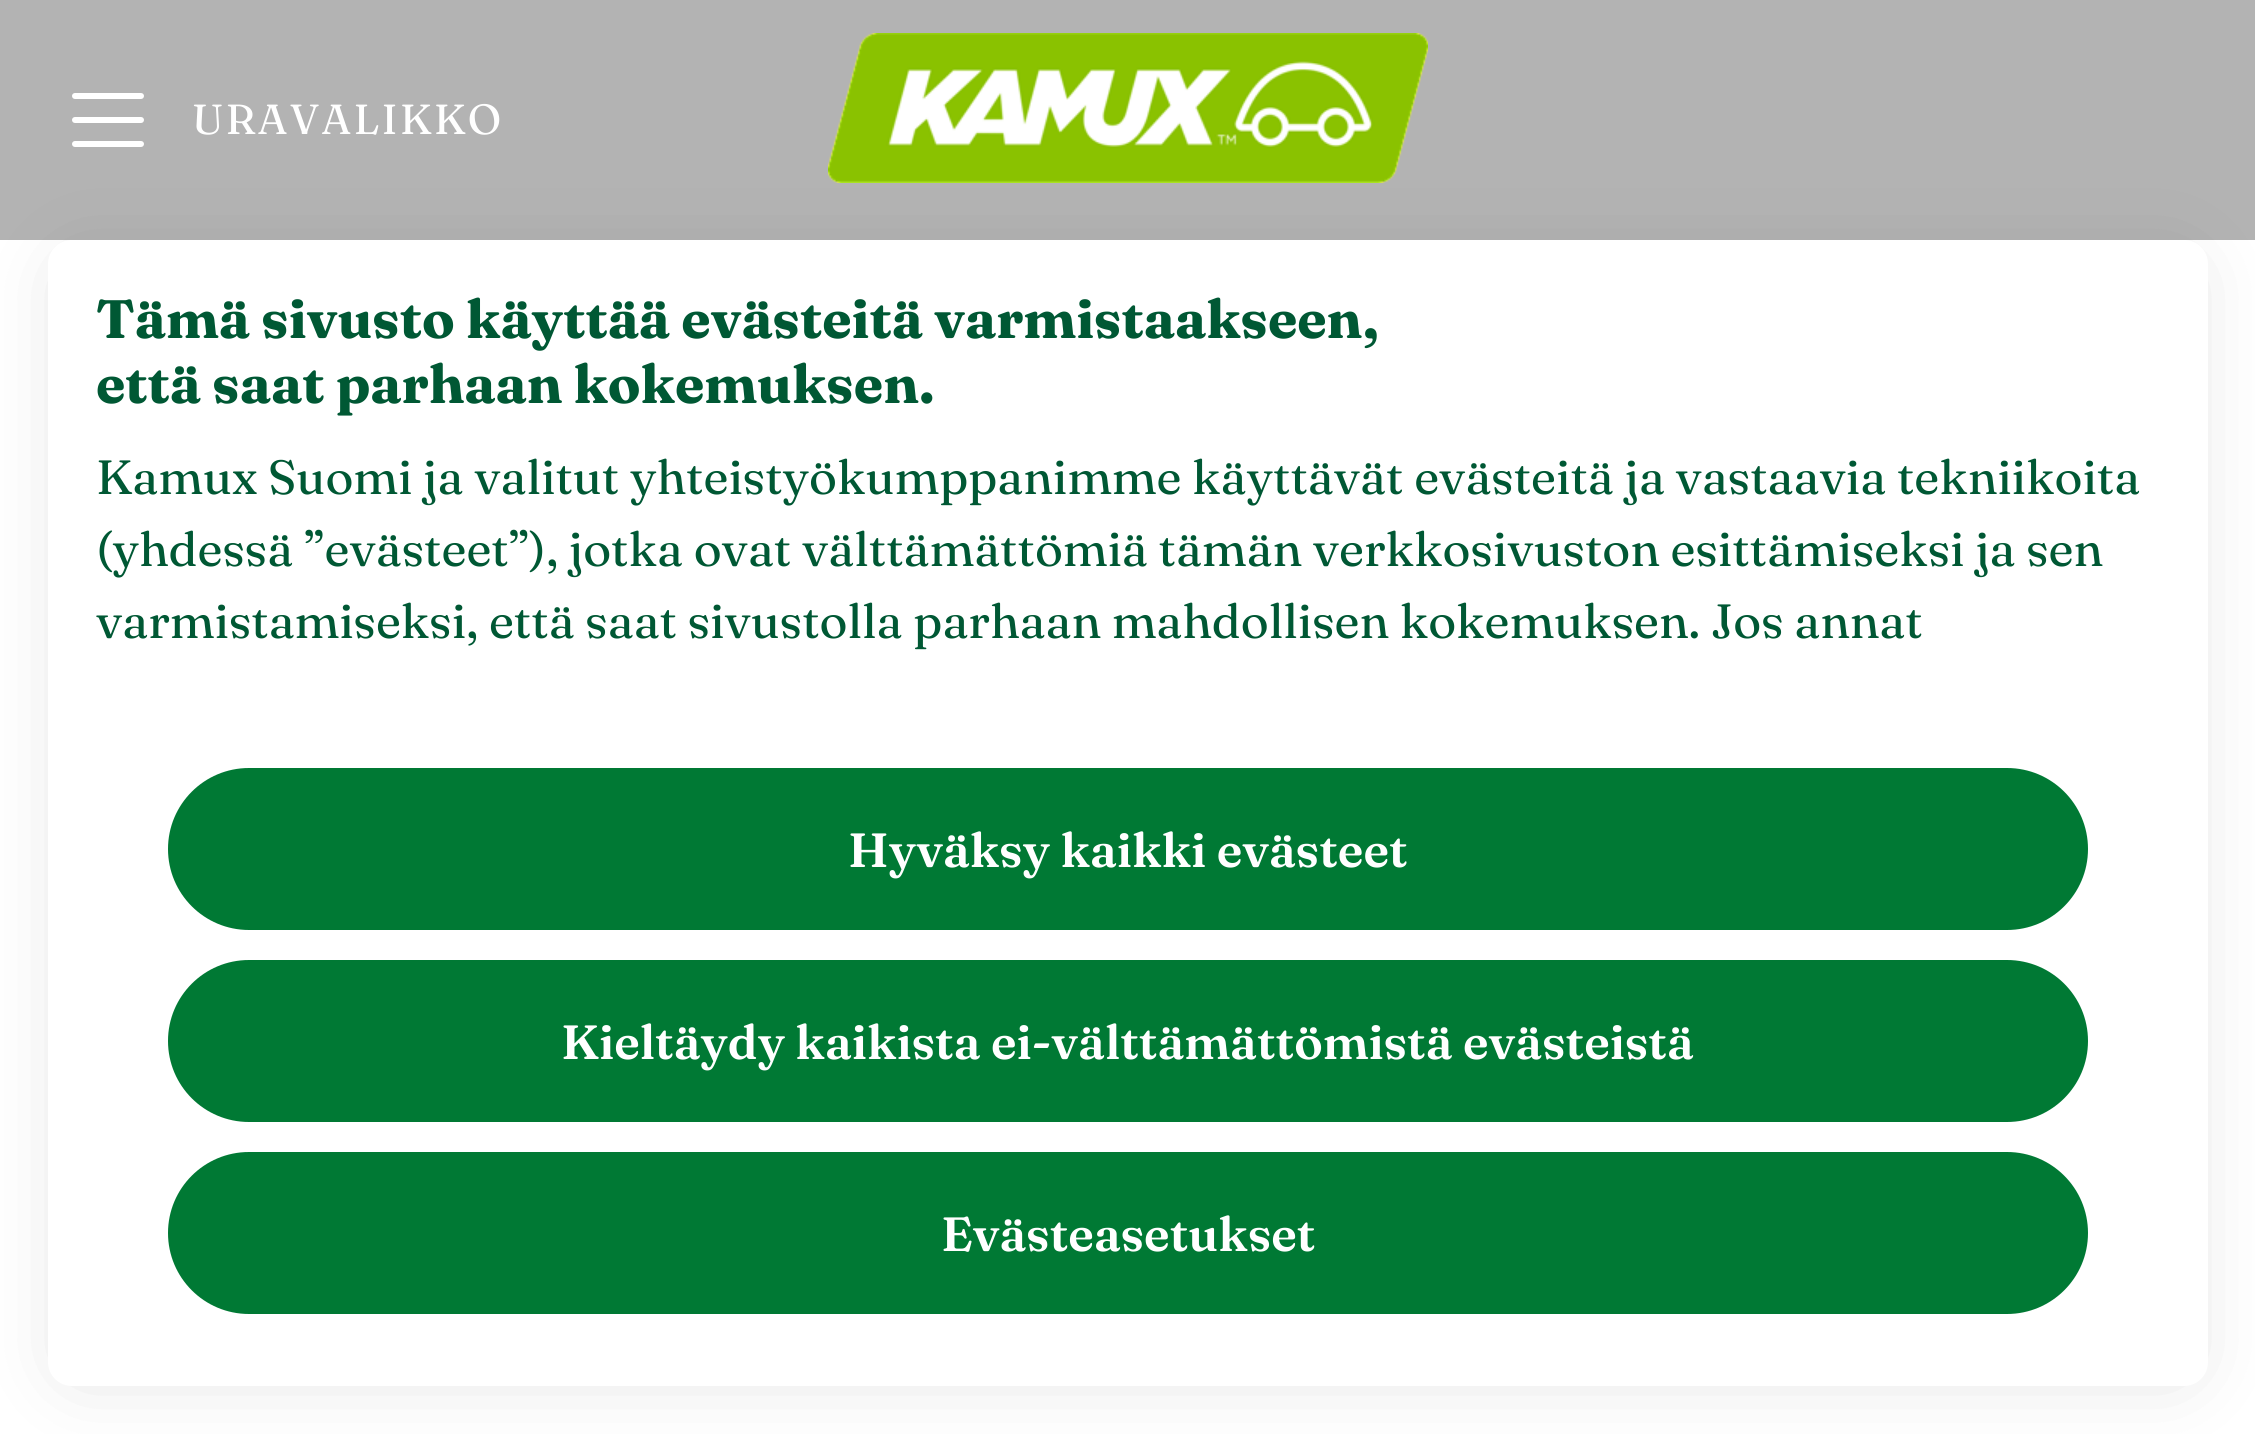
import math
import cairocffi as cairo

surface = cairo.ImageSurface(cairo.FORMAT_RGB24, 2255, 1434)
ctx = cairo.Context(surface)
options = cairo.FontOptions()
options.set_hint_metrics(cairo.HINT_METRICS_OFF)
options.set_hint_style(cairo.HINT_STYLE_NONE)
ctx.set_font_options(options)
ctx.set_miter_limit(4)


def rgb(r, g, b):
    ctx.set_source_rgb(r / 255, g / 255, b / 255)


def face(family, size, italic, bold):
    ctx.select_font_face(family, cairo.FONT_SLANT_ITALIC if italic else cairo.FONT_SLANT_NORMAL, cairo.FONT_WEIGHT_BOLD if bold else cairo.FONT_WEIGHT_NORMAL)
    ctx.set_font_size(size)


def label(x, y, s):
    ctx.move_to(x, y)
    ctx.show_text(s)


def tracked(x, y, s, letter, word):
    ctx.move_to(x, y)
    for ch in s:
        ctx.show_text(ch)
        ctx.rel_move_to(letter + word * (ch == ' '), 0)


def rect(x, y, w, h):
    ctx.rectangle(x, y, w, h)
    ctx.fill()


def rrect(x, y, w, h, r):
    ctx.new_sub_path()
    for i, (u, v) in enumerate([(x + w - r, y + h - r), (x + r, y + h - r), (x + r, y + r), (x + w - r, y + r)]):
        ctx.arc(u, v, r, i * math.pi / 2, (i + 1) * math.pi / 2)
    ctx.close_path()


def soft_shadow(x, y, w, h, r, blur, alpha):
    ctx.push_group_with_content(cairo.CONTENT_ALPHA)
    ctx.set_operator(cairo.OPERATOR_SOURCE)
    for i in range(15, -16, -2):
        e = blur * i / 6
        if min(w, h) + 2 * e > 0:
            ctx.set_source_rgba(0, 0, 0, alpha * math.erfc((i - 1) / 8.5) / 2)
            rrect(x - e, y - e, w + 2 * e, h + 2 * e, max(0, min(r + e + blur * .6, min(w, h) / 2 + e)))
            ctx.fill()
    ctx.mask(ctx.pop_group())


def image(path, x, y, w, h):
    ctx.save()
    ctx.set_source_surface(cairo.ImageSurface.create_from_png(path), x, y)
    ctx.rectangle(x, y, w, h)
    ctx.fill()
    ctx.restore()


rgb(255, 255, 255)
ctx.paint()
rgb(179, 179, 179)
rect(0, 0, 2255, 240)
rgb(255, 255, 255)
rrect(72, 93, 72, 6, 3)
ctx.fill()
rrect(72, 117, 72, 6, 3)
ctx.fill()
rrect(72, 141, 72, 6, 3)
ctx.fill()
face('Fraunces', 42, 0, 0)
tracked(192, 134, 'URAVALIKKO', 2.1, 0)
image('image0.png', 828, 33, 600, 150)
rgb(0, 0, 0)
soft_shadow(78, 276, 2100, 1086, 0, 40.5, 0.18)
rgb(255, 255, 255)
rrect(48, 240, 2160, 1146, 24)
ctx.fill()
face('Fraunces', 54, 0, 1)
rgb(0, 88, 52)
label(96, 338, 'Tämä sivusto käyttää evästeitä varmistaakseen,')
label(96, 403, 'että saat parhaan kokemuksen.')
face('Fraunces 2', 48, 0, 0)
label(96, 494, 'Kamux Suomi ja valitut yhteistyökumppanimme käyttävät evästeitä ja vastaavia tekniikoita')
label(96, 566, '(yhdessä ”evästeet”), jotka ovat välttämättömiä tämän verkkosivuston esittämiseksi ja sen')
label(96, 638, 'varmistamiseksi, että saat sivustolla parhaan mahdollisen kokemuksen. Jos annat')
rgb(0, 121, 52)
rrect(168, 768, 1920, 162, 81)
ctx.fill()
face('Fraunces SemiBold', 48, 0, 0)
rgb(255, 255, 255)
label(848, 867, 'Hyväksy kaikki evästeet')
rgb(0, 121, 52)
rrect(168, 960, 1920, 162, 81)
ctx.fill()
rgb(255, 255, 255)
label(561, 1059, 'Kieltäydy kaikista ei-välttämättömistä evästeistä')
rgb(0, 121, 52)
rrect(168, 1152, 1920, 162, 81)
ctx.fill()
rgb(255, 255, 255)
label(941, 1251, 'Evästeasetukset')
surface.write_to_png('render.png')
